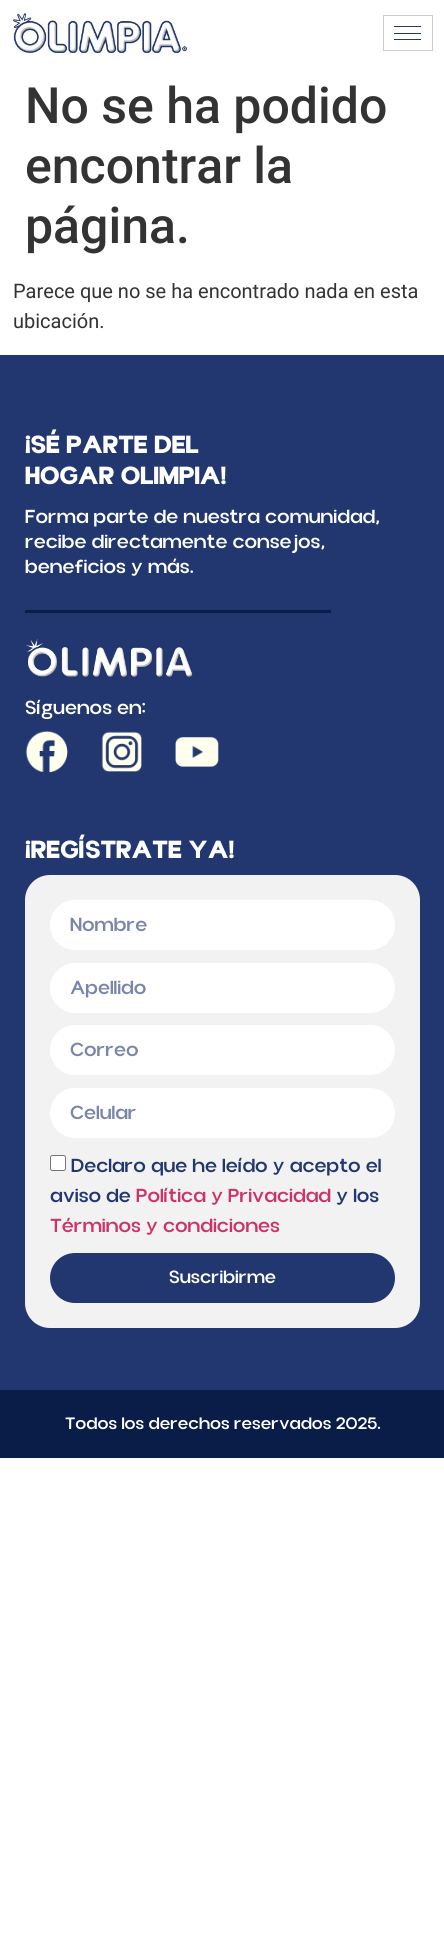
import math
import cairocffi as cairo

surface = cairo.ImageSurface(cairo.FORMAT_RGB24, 444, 1959)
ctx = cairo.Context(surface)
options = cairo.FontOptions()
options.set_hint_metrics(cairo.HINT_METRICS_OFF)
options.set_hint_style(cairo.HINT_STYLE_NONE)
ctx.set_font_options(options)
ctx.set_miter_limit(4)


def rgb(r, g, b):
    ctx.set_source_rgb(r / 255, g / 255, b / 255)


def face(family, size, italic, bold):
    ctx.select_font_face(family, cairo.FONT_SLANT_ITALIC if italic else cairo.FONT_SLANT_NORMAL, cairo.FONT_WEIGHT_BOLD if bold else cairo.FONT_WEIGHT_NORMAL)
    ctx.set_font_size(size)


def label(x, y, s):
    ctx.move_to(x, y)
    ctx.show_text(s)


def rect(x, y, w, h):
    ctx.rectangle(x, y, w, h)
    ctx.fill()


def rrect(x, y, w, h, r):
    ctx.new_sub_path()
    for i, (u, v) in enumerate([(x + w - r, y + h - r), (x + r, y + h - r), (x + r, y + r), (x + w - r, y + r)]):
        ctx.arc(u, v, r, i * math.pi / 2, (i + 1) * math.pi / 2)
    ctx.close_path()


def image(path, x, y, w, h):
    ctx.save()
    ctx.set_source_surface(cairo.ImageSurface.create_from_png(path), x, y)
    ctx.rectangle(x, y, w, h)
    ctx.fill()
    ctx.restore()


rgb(255, 255, 255)
ctx.paint()
image('image0.png', 12, 12, 176, 42)
ctx.rectangle(383.5, 15.5, 49, 35)
rgb(204, 204, 204)
ctx.set_line_width(1)
ctx.stroke()
rgb(34, 54, 111)
rect(394, 26, 27, 1)
rect(394, 33, 27, 1)
rect(394, 39, 27, 1)
face('Roboto Medium', 50, 0, 0)
rgb(51, 51, 51)
label(25, 123, 'No se ha podido')
label(25, 183, 'encontrar la')
label(25, 243, 'página.')
face('Roboto', 20, 0, 0)
label(13, 298, 'Parece que no se ha encontrado nada en esta')
label(13, 328, 'ubicación.')
rgb(34, 55, 111)
rect(0, 355, 444, 1035)
face('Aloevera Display', 26.25, 0, 1)
rgb(255, 255, 255)
label(25, 453, '¡SÉ PARTE DEL')
label(25, 484, 'HOGAR OLIMPIA!')
face('Aloevera Display Medium', 20, 0, 0)
label(25, 523, 'Forma parte de nuestra comunidad,')
label(25, 548, 'recibe directamente consejos,')
label(25, 573, 'beneficios y más.')
rgb(10, 29, 73)
rect(25, 610, 306, 3)
image('image1.png', 26, 639, 173, 39)
rgb(255, 255, 255)
label(25, 714, 'Síguenos en:')
image('image2.png', 26, 731, 42, 42)
image('image3.png', 101, 731, 41, 41)
image('image4.png', 175, 737, 44, 30)
face('Aloevera Display', 26.25, 0, 1)
label(25, 858, '¡REGÍSTRATE YA!')
rgb(242, 242, 242)
rrect(25, 875, 395, 453, 25)
ctx.fill()
rgb(255, 255, 255)
rrect(50, 900, 345, 50, 25)
ctx.fill()
face('Aloevera Display Medium', 20, 0, 0)
rgb(122, 134, 169)
label(70, 931, 'Nombre')
rgb(255, 255, 255)
rrect(50, 963, 345, 50, 25)
ctx.fill()
rgb(122, 134, 169)
label(70, 994, 'Apellido')
rgb(255, 255, 255)
rrect(50, 1025, 345, 50, 25)
ctx.fill()
rgb(122, 134, 169)
label(70, 1056, 'Correo')
rgb(255, 255, 255)
rrect(50, 1088, 345, 50, 25)
ctx.fill()
rgb(122, 134, 169)
label(70, 1119, 'Celular')
rgb(255, 255, 255)
rrect(50.5, 1155.5, 15, 15, 2)
ctx.fill_preserve()
rgb(118, 118, 118)
ctx.stroke()
rgb(34, 54, 111)
label(71, 1172, 'Declaro que he leído y acepto el')
label(50, 1202, 'aviso de')
rgb(204, 51, 102)
label(136, 1202, 'Política y Privacidad')
rgb(34, 54, 111)
label(336, 1202, 'y los')
rgb(204, 51, 102)
label(50, 1232, 'Términos y condiciones')
rgb(34, 55, 111)
rrect(50, 1253, 345, 50, 25)
ctx.fill()
face('Aloevera Display Medium', 18.75, 0, 0)
rgb(255, 255, 255)
label(169, 1283, 'Suscribirme')
rgb(10, 29, 73)
rect(0, 1390, 444, 68)
face('Aloevera Display Medium', 17.5, 0, 0)
rgb(255, 255, 255)
label(65, 1429, 'Todos los derechos reservados 2025.')
surface.write_to_png('render.png')
